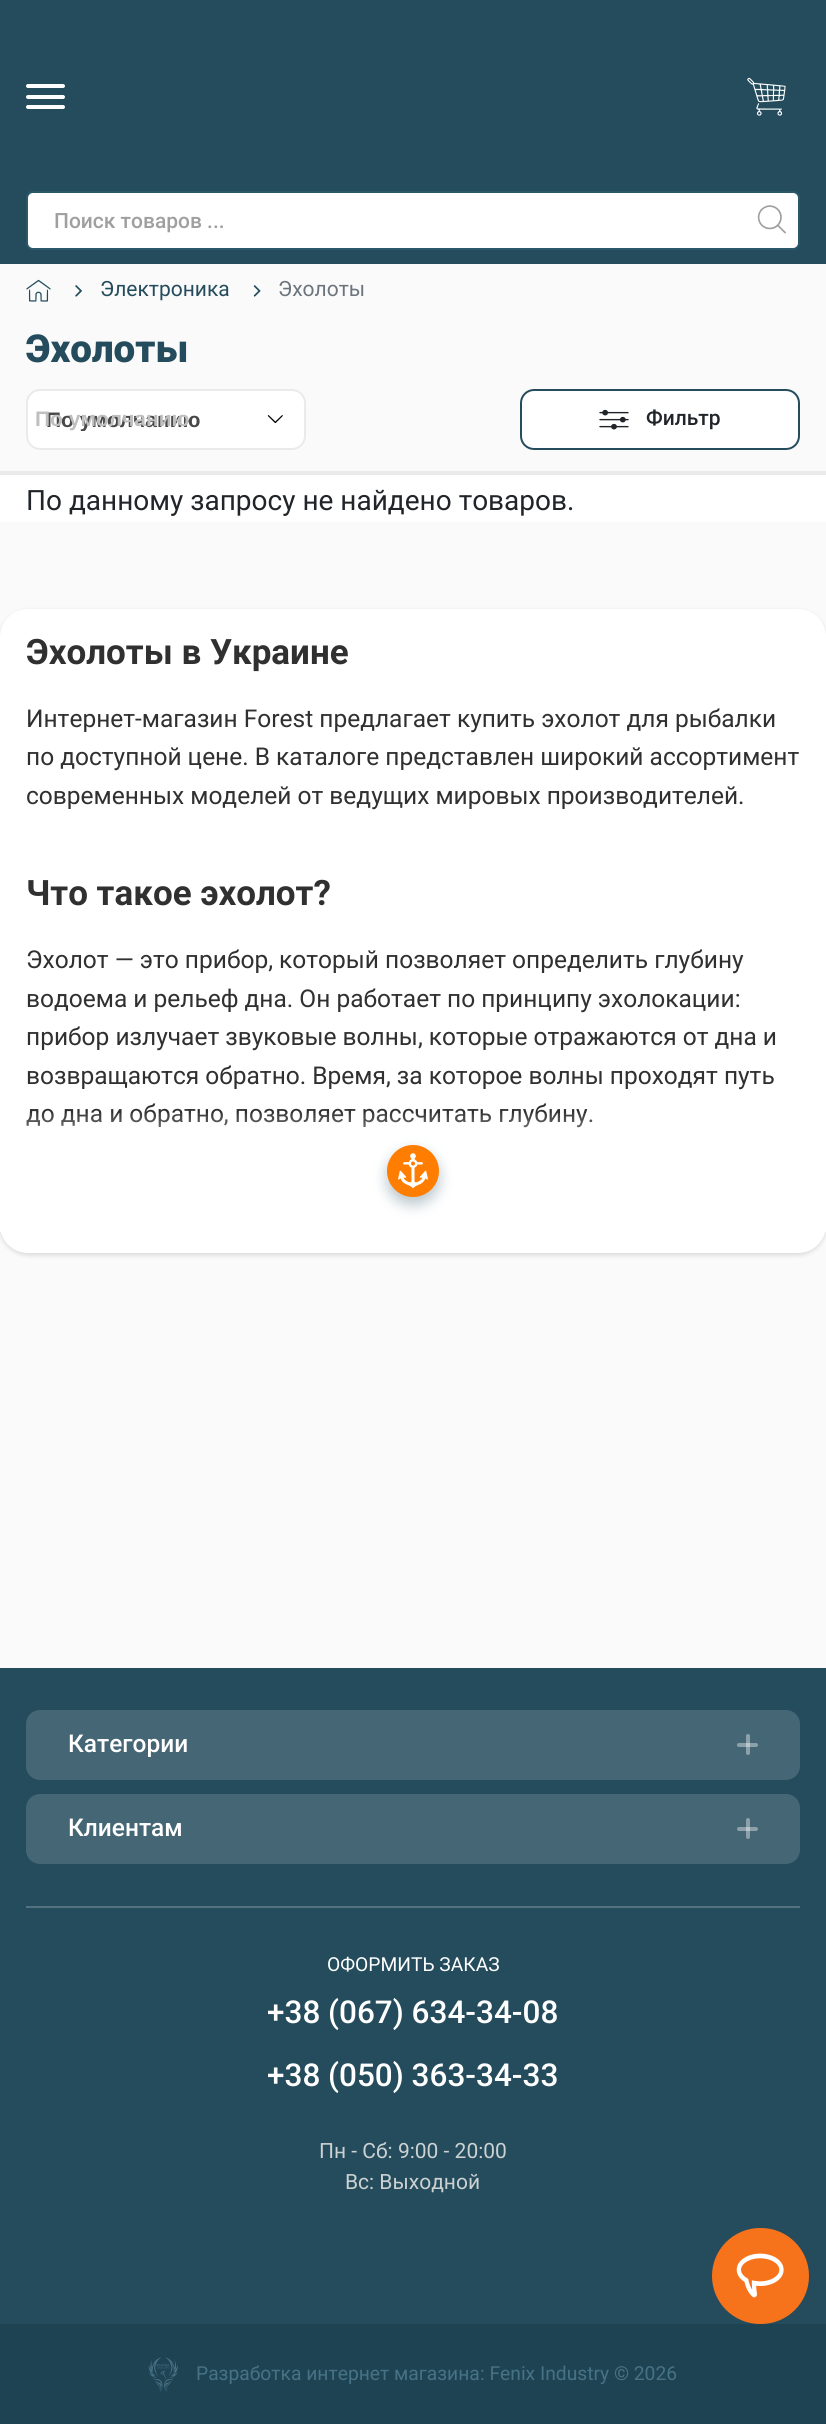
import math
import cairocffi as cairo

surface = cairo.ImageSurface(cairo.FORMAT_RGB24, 826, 2424)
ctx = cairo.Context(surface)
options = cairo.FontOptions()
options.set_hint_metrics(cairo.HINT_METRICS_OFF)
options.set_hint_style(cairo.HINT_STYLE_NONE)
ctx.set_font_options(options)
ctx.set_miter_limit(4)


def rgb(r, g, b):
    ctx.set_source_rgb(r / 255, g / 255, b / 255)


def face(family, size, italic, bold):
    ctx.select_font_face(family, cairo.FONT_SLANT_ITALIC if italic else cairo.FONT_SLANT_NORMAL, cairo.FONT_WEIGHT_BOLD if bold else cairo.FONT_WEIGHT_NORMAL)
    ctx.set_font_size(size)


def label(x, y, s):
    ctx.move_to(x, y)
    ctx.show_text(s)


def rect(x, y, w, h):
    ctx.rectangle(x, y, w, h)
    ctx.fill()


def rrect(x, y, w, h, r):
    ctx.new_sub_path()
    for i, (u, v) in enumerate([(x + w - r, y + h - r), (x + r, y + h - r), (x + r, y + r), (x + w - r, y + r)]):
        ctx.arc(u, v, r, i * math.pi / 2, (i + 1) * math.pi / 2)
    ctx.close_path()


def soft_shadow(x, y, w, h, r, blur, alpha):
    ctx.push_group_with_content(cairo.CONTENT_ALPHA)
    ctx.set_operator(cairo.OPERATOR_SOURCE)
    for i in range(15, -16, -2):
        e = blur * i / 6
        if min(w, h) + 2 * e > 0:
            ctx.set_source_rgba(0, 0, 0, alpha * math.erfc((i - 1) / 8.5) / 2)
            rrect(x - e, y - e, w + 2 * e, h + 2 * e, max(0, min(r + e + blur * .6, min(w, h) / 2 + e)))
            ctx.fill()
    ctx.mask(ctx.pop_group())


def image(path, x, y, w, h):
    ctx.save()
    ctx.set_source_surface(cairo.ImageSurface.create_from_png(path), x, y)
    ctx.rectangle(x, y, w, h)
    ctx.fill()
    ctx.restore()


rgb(250, 250, 250)
ctx.paint()
rgb(36, 76, 93)
rect(0, 0, 826, 264)
rgb(255, 255, 255)
rrect(26, 95, 39, 4, 2)
ctx.fill()
rrect(26, 84, 39, 4, 2)
ctx.fill()
rrect(26, 105, 39, 4, 2)
ctx.fill()
image('image0.png', 747, 77, 39, 39)
rrect(27, 192, 772, 57, 6)
ctx.fill_preserve()
rgb(42, 87, 106)
ctx.stroke()
face('Roboto Medium', 21, 0, 0)
rgb(159, 159, 159)
label(54, 228, 'Поиск товаров ...')
image('image1.png', 757, 205, 29, 29)
image('image2.png', 26, 279, 25, 23)
image('image3.png', 75, 285, 8, 12)
face('Roboto', 21, 0, 0)
rgb(36, 76, 93)
label(100, 296, 'Электроника')
image('image4.png', 253, 285, 8, 12)
rgb(108, 117, 125)
label(278, 296, 'Эхолоты')
face('Roboto Black', 38.5, 0, 0)
rgb(36, 76, 93)
label(26, 362, 'Эхолоты')
rgb(255, 255, 255)
rrect(27, 390, 278, 59, 13)
ctx.fill_preserve()
rgb(234, 234, 234)
ctx.stroke()
image('image5.png', 267, 415, 16, 9)
ctx.new_path()
ctx.move_to(283.5, 416)
ctx.line_to(290.5, 423)
ctx.line_to(297.5, 416)
rgb(255, 255, 255)
ctx.set_line_width(3.5)
ctx.stroke()
ctx.save()
ctx.rectangle(46, 410, 154, 21)
ctx.clip()
face('Liberation Sans', 21, 0, 1)
rgb(72, 72, 72)
label(46, 427, 'По умолчанию')
ctx.restore()
face('Liberation Sans', 21, 0, 1)
rgb(191, 191, 191)
label(35, 426, 'По умолчанию')
rgb(255, 255, 255)
rrect(521, 390, 278, 59, 13)
ctx.fill_preserve()
rgb(36, 76, 93)
ctx.set_line_width(2)
ctx.stroke()
image('image6.png', 599, 409, 30, 21)
face('Roboto Medium', 21, 0, 0)
rgb(33, 37, 41)
label(646, 425, 'Фильтр')
rgb(255, 255, 255)
rect(0, 475, 826, 47)
rgb(234, 234, 234)
rect(0, 471, 826, 4)
face('Roboto', 28, 0, 0)
rgb(33, 37, 41)
label(26, 510, 'По данному запросу не найдено товаров.')
rgb(0, 0, 0)
soft_shadow(0, 611, 826, 644, 28, 2.5, 0.14)
rgb(255, 255, 255)
rrect(0, 609, 826, 644, 28)
ctx.fill()
face('Roboto', 35, 0, 1)
rgb(48, 48, 48)
label(26, 664, 'Эхолоты в Украине')
face('Roboto', 24.5, 0, 0)
label(26, 727, 'Интернет-магазин Forest предлагает купить эхолот для рыбалки')
label(26, 765, 'по доступной цене. В каталоге представлен широкий ассортимент')
label(26, 804, 'современных моделей от ведущих мировых производителей.')
face('Roboto', 35, 0, 1)
label(26, 905, 'Что такое эхолот?')
face('Roboto', 24.5, 0, 0)
label(26, 968, 'Эхолот — это прибор, который позволяет определить глубину')
label(26, 1007, 'водоема и рельеф дна. Он работает по принципу эхолокации:')
label(26, 1045, 'прибор излучает звуковые волны, которые отражаются от дна и')
label(26, 1084, 'возвращаются обратно. Время, за которое волны проходят путь')
label(26, 1122, 'до дна и обратно, позволяет рассчитать глубину.')
gradient = cairo.LinearGradient(413, 1232, 413, 1110)
gradient.add_color_stop_rgba(0, 1, 1, 1, 1)
gradient.add_color_stop_rgba(1, 1, 1, 1, 0)
ctx.set_source(gradient)
rect(0, 1113, 826, 118)
rect(0, 1113, 826, 119)
rgb(36, 76, 93)
soft_shadow(387, 1152, 52, 52, 26, 7, 0.32)
rgb(255, 125, 0)
ctx.arc(413, 1171, 26, 0, 2 * math.pi)
ctx.fill()
image('image7.png', 398, 1153, 30, 36)
rgb(36, 76, 93)
rect(0, 1668, 826, 656)
rgb(69, 103, 117)
rrect(26, 1710, 774, 70, 14)
ctx.fill()
face('Roboto Medium', 24.5, 0, 0)
rgb(255, 255, 255)
label(68, 1752, 'Категории')
rgb(140, 161, 169)
rrect(737, 1743, 21, 4, 2)
ctx.fill()
ctx.set_source_rgba(1, 1, 1, 0.38)
rrect(746, 1734, 4, 21, 2)
ctx.fill()
rgb(69, 103, 117)
rrect(26, 1794, 774, 70, 14)
ctx.fill()
rgb(255, 255, 255)
label(68, 1836, 'Клиентам')
rgb(140, 161, 169)
rrect(737, 1827, 21, 4, 2)
ctx.fill()
ctx.set_source_rgba(1, 1, 1, 0.38)
rrect(746, 1818, 4, 21, 2)
ctx.fill()
rgb(82, 114, 127)
rect(26, 1906, 774, 2)
face('Roboto', 19.25, 0, 0)
rgb(255, 255, 255)
label(327, 1971, 'ОФОРМИТЬ ЗАКАЗ')
face('Roboto Medium', 31.5, 0, 0)
label(267, 2023, '+38 (067) 634-34-08')
label(267, 2086, '+38 (050) 363-34-33')
face('Roboto', 21, 0, 0)
rgb(204, 209, 210)
label(319, 2158, 'Пн - Сб: 9:00 - 20:00')
label(345, 2189, 'Вс: Выходной')
rgb(30, 67, 83)
rect(0, 2324, 826, 100)
image('image8.png', 148, 2357, 30, 35)
face('Roboto', 19.25, 0, 0)
rgb(71, 114, 133)
label(196, 2380, 'Разработка интернет магазина')
label(480, 2380, ': Fenix Industry © 2026')
rgb(246, 115, 28)
rrect(712, 2228, 97, 96, 48)
ctx.fill()
image('image9.png', 736, 2253, 48, 45)
surface.write_to_png('render.png')
